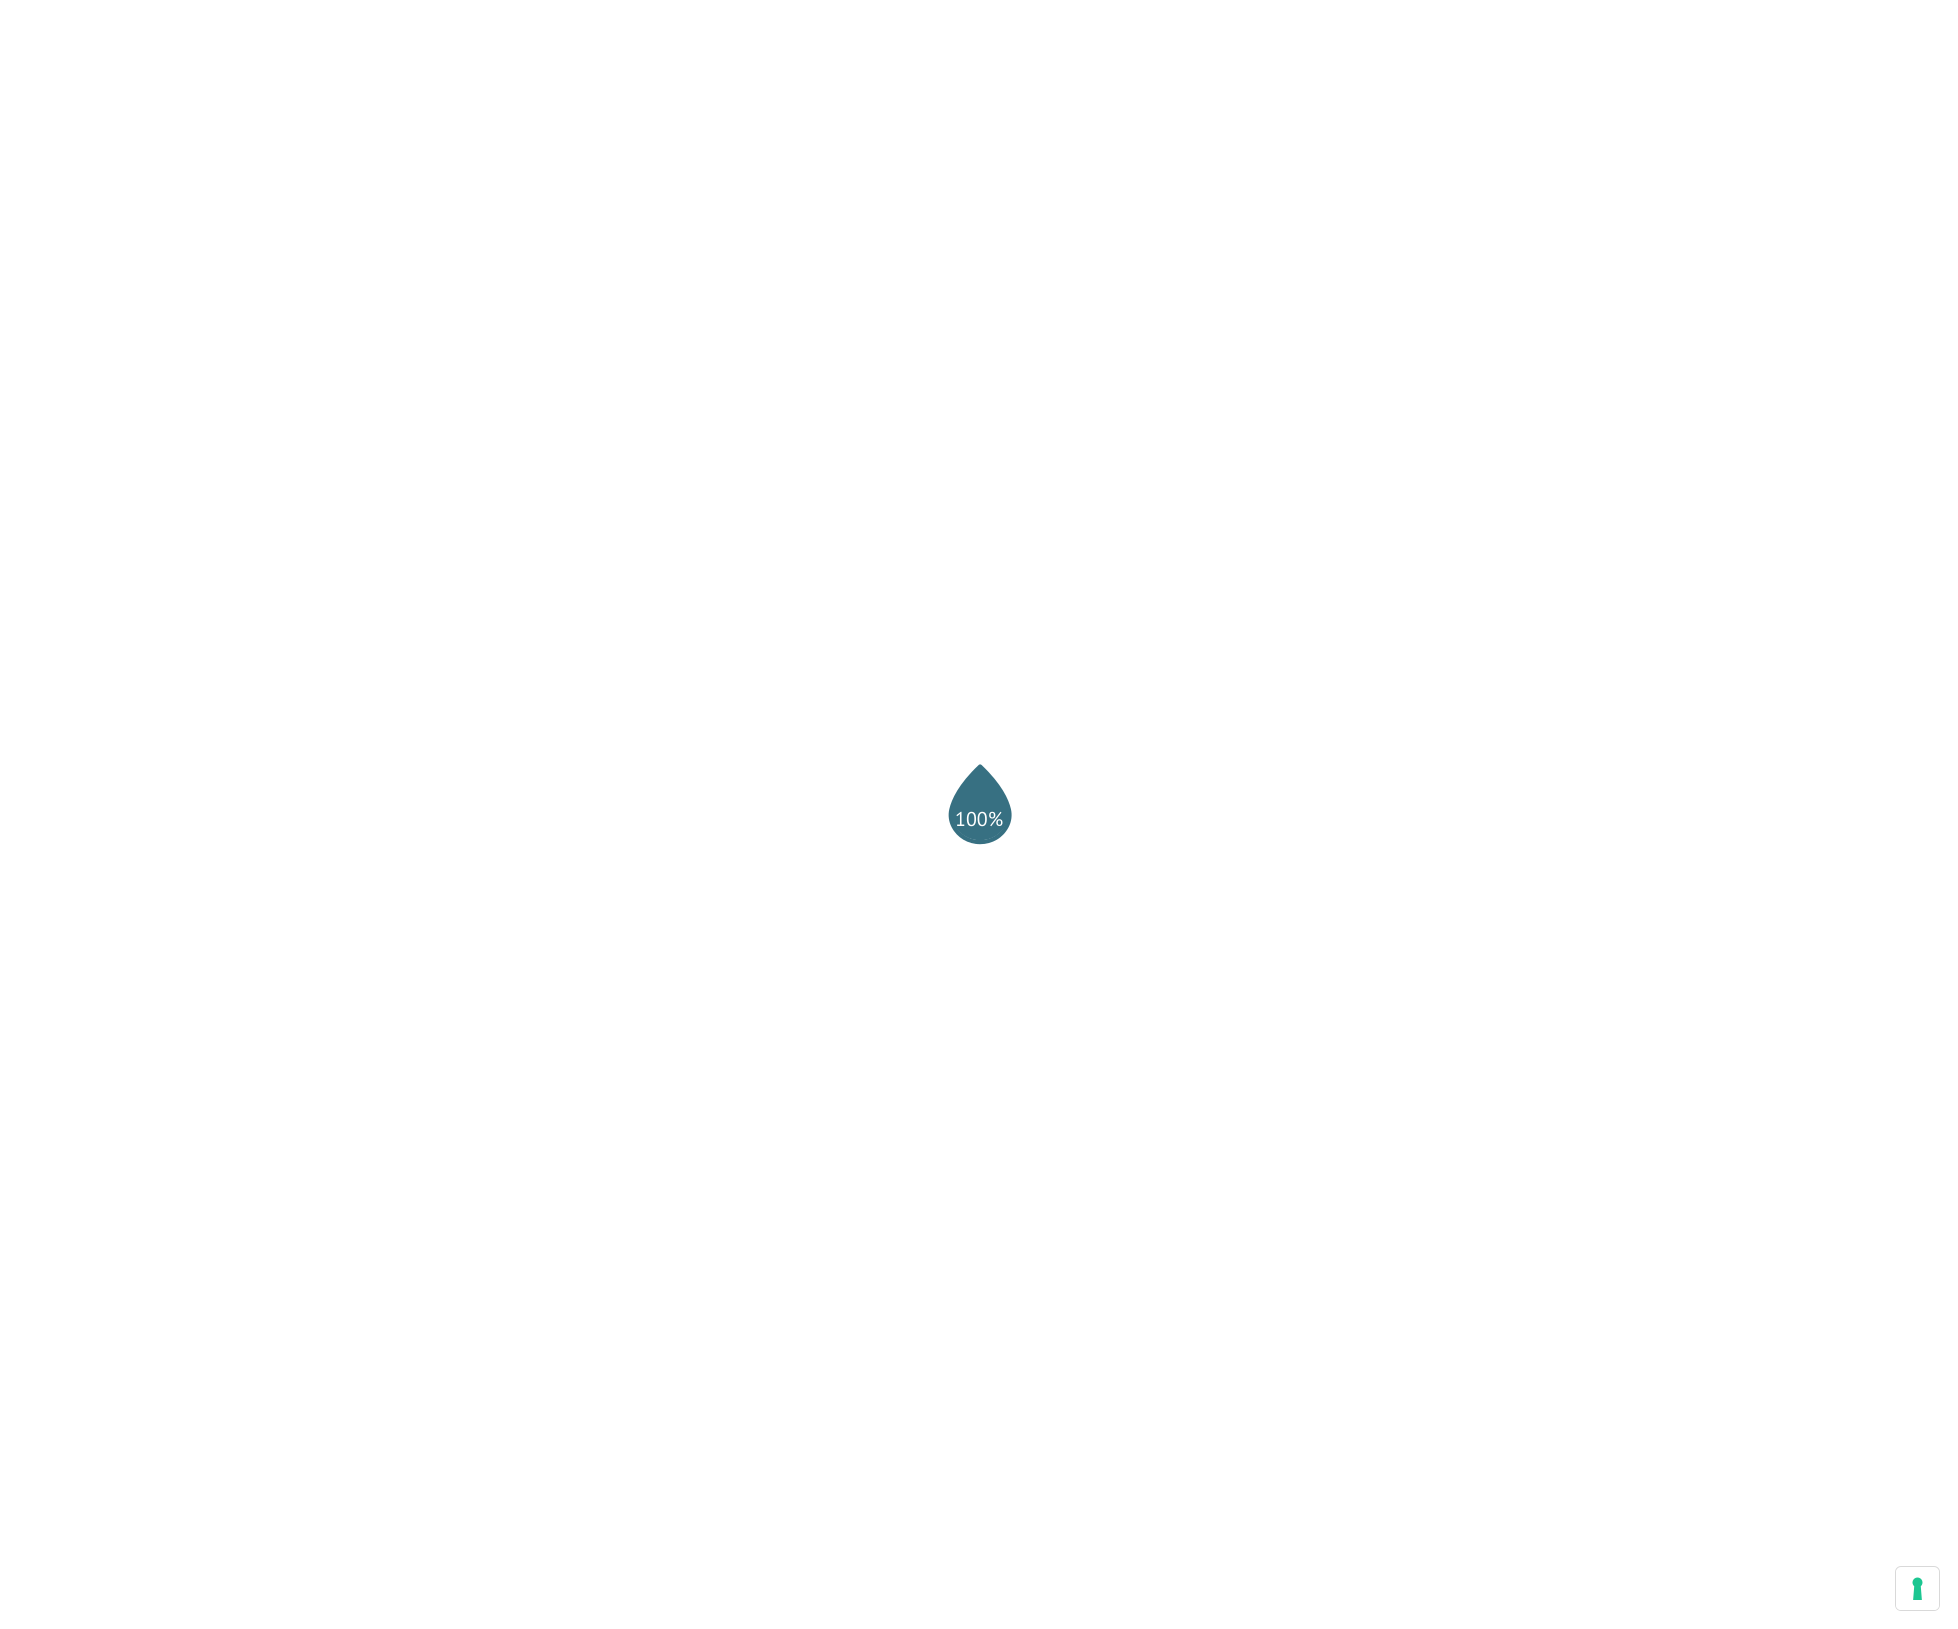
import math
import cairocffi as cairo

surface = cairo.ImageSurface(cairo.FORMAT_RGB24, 1958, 1629)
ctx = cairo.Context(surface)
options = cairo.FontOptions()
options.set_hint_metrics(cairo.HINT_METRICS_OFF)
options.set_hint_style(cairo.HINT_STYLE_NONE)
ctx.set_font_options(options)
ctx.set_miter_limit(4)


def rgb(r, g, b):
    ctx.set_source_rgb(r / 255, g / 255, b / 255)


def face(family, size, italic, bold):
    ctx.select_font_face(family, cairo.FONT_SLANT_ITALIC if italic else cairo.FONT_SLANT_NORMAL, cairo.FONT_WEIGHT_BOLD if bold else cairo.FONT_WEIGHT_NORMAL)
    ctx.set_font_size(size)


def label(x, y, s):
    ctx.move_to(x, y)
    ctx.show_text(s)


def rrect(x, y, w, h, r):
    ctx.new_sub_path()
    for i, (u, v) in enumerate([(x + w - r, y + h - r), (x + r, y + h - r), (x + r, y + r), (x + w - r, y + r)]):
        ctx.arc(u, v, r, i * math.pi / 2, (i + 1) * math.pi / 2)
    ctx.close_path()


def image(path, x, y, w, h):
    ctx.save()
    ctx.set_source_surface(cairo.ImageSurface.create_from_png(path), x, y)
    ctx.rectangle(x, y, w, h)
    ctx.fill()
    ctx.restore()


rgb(255, 255, 255)
ctx.paint()
image('image0.png', 948, 764, 64, 81)
face('PT Sans', 20, 0, 0)
rgb(255, 255, 255)
label(955, 826, '100%')
rrect(1895.5, 1566.5, 44, 44, 5.5)
rgb(217, 217, 217)
ctx.set_line_width(1)
ctx.stroke()
rgb(255, 255, 255)
rrect(1896, 1568, 43, 42, 5)
ctx.fill()
image('image1.png', 1912, 1577, 11, 23)
surface.write_to_png('render.png')
